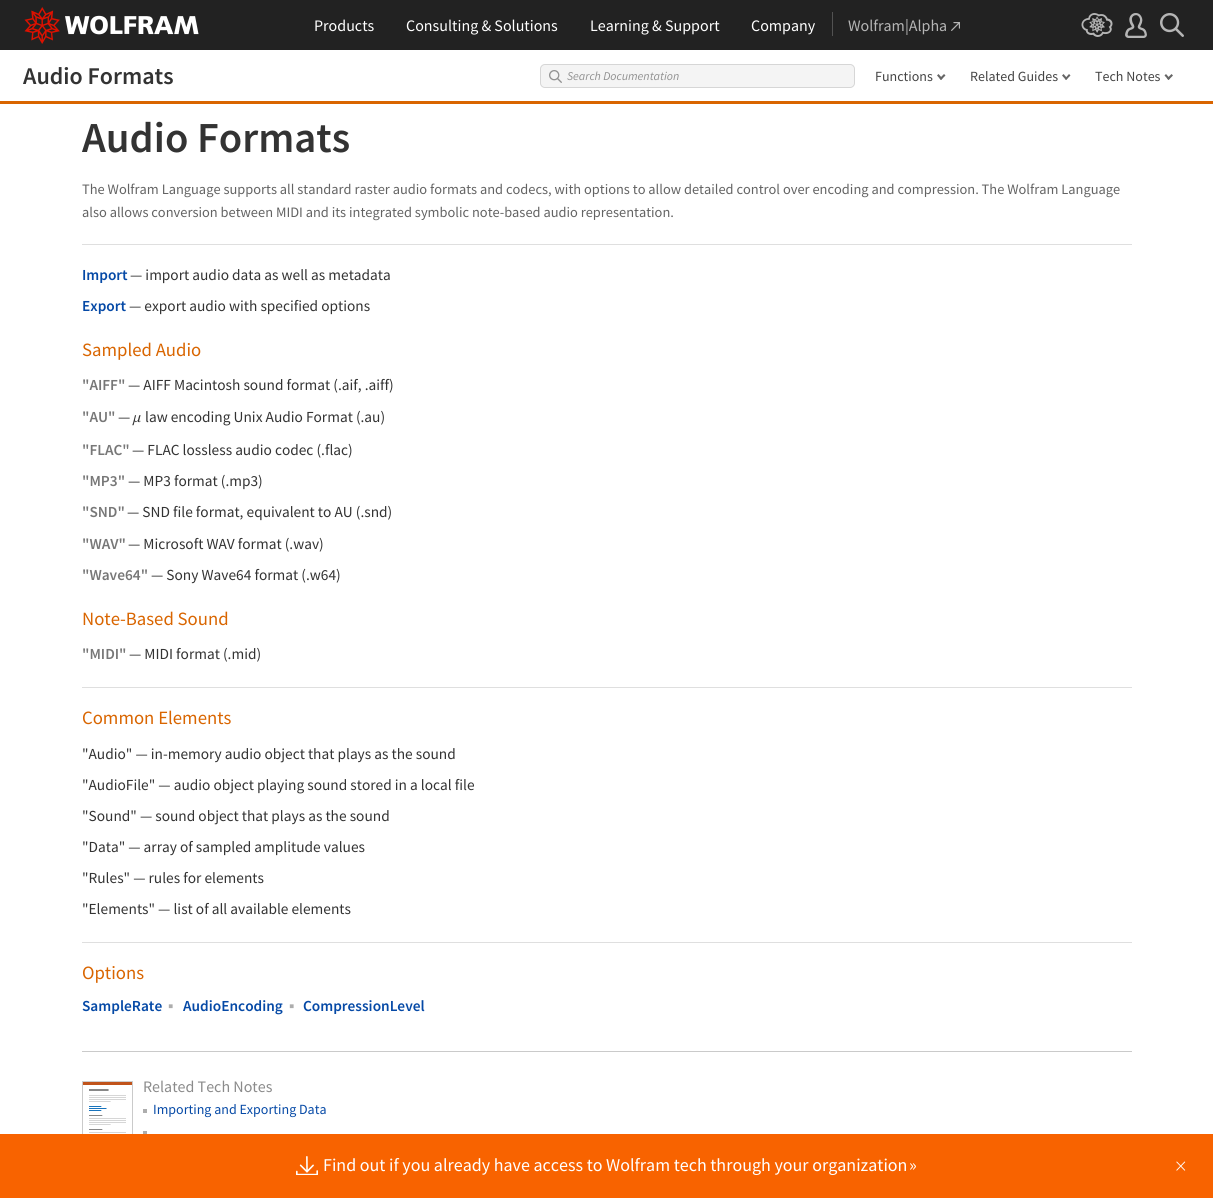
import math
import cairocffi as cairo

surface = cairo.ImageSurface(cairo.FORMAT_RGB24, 1213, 1198)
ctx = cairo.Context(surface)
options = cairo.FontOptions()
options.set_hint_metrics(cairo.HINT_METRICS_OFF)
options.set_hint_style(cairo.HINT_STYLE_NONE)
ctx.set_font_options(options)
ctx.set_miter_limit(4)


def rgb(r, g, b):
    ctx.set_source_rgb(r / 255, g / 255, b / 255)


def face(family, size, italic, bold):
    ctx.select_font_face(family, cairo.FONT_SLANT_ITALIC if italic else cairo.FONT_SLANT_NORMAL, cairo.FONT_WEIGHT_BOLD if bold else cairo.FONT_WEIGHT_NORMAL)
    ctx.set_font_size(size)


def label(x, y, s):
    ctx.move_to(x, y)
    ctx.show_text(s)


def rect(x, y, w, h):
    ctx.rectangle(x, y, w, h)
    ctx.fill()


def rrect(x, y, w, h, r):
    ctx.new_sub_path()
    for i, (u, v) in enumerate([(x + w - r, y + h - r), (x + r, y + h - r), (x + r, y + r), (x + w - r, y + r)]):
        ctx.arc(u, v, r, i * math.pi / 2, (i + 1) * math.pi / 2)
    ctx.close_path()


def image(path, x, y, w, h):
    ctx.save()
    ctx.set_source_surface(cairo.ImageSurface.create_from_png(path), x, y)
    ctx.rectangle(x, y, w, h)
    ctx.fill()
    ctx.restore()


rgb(255, 255, 255)
ctx.paint()
rgb(34, 34, 34)
rect(0, 0, 1213, 50)
image('image0.png', 24, 7, 175, 37)
face('Source Sans Pro', 16, 0, 0)
rgb(255, 255, 255)
label(314, 31, 'Products')
label(406, 31, 'Consulting & Solutions')
label(590, 31, 'Learning & Support')
label(751, 31, 'Company')
rgb(82, 82, 82)
rect(832, 12, 1, 24)
rgb(181, 181, 181)
label(848, 31, 'Wolfram|Alpha')
image('image1.png', 951, 22, 9, 9)
image('image2.png', 1081, 13, 32, 24)
image('image3.png', 1125, 13, 22, 25)
image('image4.png', 1160, 13, 24, 24)
rgb(217, 101, 0)
rect(0, 101, 1213, 3)
face('Source Sans Pro SemiBold', 24, 0, 0)
rgb(51, 51, 51)
label(23, 84, 'Audio Formats')
rgb(244, 244, 244)
rrect(540.5, 64.5, 314, 23, 4.5)
ctx.fill_preserve()
rgb(214, 214, 214)
ctx.set_line_width(1)
ctx.stroke()
image('image5.png', 549, 70, 13, 13)
face('Source Sans Pro', 12, 1, 0)
rgb(145, 145, 145)
label(567, 80, 'Search Documentation')
face('Source Sans Pro', 14, 0, 0)
rgb(68, 68, 68)
label(875, 81, 'Functions')
rgb(102, 102, 102)
ctx.new_path()
ctx.move_to(939.5, 78.5)
ctx.line_to(944, 74)
ctx.line_to(945.5, 75.5)
ctx.line_to(941, 80)
ctx.close_path()
ctx.fill()
ctx.new_path()
ctx.move_to(937, 75.5)
ctx.line_to(938.5, 74)
ctx.line_to(942.5, 78.5)
ctx.line_to(941, 80)
ctx.close_path()
ctx.fill()
rgb(68, 68, 68)
label(970, 81, 'Related Guides')
rgb(102, 102, 102)
ctx.new_path()
ctx.move_to(1065, 78.5)
ctx.line_to(1069, 74)
ctx.line_to(1070.5, 75.5)
ctx.line_to(1066, 80)
ctx.close_path()
ctx.fill()
ctx.new_path()
ctx.move_to(1062, 75.5)
ctx.line_to(1063.5, 74)
ctx.line_to(1067.5, 78.5)
ctx.line_to(1066, 80)
ctx.close_path()
ctx.fill()
rgb(68, 68, 68)
label(1095, 81, 'Tech Notes')
rgb(102, 102, 102)
ctx.new_path()
ctx.move_to(1167, 78.5)
ctx.line_to(1171.5, 74)
ctx.line_to(1173, 75.5)
ctx.line_to(1168.5, 80)
ctx.close_path()
ctx.fill()
ctx.new_path()
ctx.move_to(1164.5, 75.5)
ctx.line_to(1166, 74)
ctx.line_to(1170, 78.5)
ctx.line_to(1168.5, 80)
ctx.close_path()
ctx.fill()
face('Source Sans Pro SemiBold', 42.75, 0, 0)
rgb(51, 51, 51)
label(82, 152, 'Audio Formats')
face('Source Sans Pro', 14.4, 0, 0)
rgb(99, 99, 99)
label(82, 194, 'The Wolfram Language supports all standard raster audio formats and codecs, with options to allow detailed control over encoding and compression. The Wolfram Language')
label(82, 217, 'also allows conversion between MIDI and its integrated symbolic note-based audio representation.')
rgb(223, 223, 223)
rect(82, 244, 1050, 1)
face('Source Sans Pro SemiBold', 15.35, 0, 0)
rgb(5, 73, 166)
label(82, 280, 'Import')
face('Source Sans Pro', 15.35, 0, 0)
rgb(51, 51, 51)
label(130, 280, '— import audio data as well as metadata')
face('Source Sans Pro SemiBold', 15.35, 0, 0)
rgb(5, 73, 166)
label(82, 311, 'Export')
face('Source Sans Pro', 15.35, 0, 0)
rgb(51, 51, 51)
label(129, 311, '— export audio with specified options')
face('Source Sans Pro', 18.75, 0, 0)
rgb(217, 101, 0)
label(82, 356, 'Sampled Audio')
face('Source Sans Pro SemiBold', 15.35, 0, 0)
rgb(119, 119, 119)
label(82, 390, '"AIFF"')
face('Source Sans Pro', 15.35, 0, 0)
rgb(51, 51, 51)
label(128, 390, '— AIFF Macintosh sound format (.aif, .aiff)')
face('Source Sans Pro SemiBold', 15.35, 0, 0)
rgb(119, 119, 119)
label(82, 422, '"AU"')
face('Source Sans Pro', 15.35, 0, 0)
rgb(51, 51, 51)
label(118, 422, '—')
image('image6.png', 132, 415, 9, 11)
label(145, 422, 'law encoding Unix Audio Format (.au)')
face('Source Sans Pro SemiBold', 15.35, 0, 0)
rgb(119, 119, 119)
label(82, 455, '"FLAC"')
face('Source Sans Pro', 15.35, 0, 0)
rgb(51, 51, 51)
label(132, 455, '— FLAC lossless audio codec (.flac)')
face('Source Sans Pro SemiBold', 15.35, 0, 0)
rgb(119, 119, 119)
label(82, 486, '"MP3"')
face('Source Sans Pro', 15.35, 0, 0)
rgb(51, 51, 51)
label(128, 486, '— MP3 format (.mp3)')
face('Source Sans Pro SemiBold', 15.35, 0, 0)
rgb(119, 119, 119)
label(82, 517, '"SND"')
face('Source Sans Pro', 15.35, 0, 0)
rgb(51, 51, 51)
label(127, 517, '— SND file format, equivalent to AU (.snd)')
face('Source Sans Pro SemiBold', 15.35, 0, 0)
rgb(119, 119, 119)
label(82, 549, '"WAV"')
face('Source Sans Pro', 15.35, 0, 0)
rgb(51, 51, 51)
label(128, 549, '— Microsoft WAV format (.wav)')
face('Source Sans Pro SemiBold', 15.35, 0, 0)
rgb(119, 119, 119)
label(82, 580, '"Wave64"')
face('Source Sans Pro', 15.35, 0, 0)
rgb(51, 51, 51)
label(151, 580, '— Sony Wave64 format (.w64)')
face('Source Sans Pro', 18.75, 0, 0)
rgb(217, 101, 0)
label(82, 625, 'Note-Based Sound')
face('Source Sans Pro SemiBold', 15.35, 0, 0)
rgb(119, 119, 119)
label(82, 659, '"MIDI"')
face('Source Sans Pro', 15.35, 0, 0)
rgb(51, 51, 51)
label(129, 659, '— MIDI format (.mid)')
rgb(223, 223, 223)
rect(82, 687, 1050, 1)
face('Source Sans Pro', 18.75, 0, 0)
rgb(217, 101, 0)
label(82, 724, 'Common Elements')
face('Source Sans Pro', 15.35, 0, 0)
rgb(51, 51, 51)
label(82, 759, '"Audio" — in-memory audio object that plays as the sound')
label(82, 790, '"AudioFile" — audio object playing sound stored in a local file')
label(82, 821, '"Sound" — sound object that plays as the sound')
label(82, 852, '"Data" — array of sampled amplitude values')
label(82, 883, '"Rules" — rules for elements')
label(82, 914, '"Elements" — list of all available elements')
rgb(223, 223, 223)
rect(82, 942, 1050, 1)
face('Source Sans Pro', 18.75, 0, 0)
rgb(217, 101, 0)
label(82, 979, 'Options')
face('Source Sans Pro SemiBold', 15.35, 0, 0)
rgb(5, 73, 166)
label(82, 1011, 'SampleRate')
face('Liberation Sans', 15.35, 0, 1)
rgb(173, 173, 173)
label(168, 1011, '▪')
face('Source Sans Pro SemiBold', 15.35, 0, 0)
rgb(5, 73, 166)
label(183, 1011, 'AudioEncoding')
face('Liberation Sans', 15.35, 0, 1)
rgb(173, 173, 173)
label(289, 1011, '▪')
face('Source Sans Pro SemiBold', 15.35, 0, 0)
rgb(5, 73, 166)
label(303, 1011, 'CompressionLevel')
image('image7.png', 82, 1081, 51, 53)
rgb(202, 202, 202)
rect(82, 1051, 1050, 1)
face('Source Sans Pro', 16, 0, 0)
rgb(139, 139, 139)
label(143, 1092, 'Related Tech Notes')
rgb(173, 173, 173)
rect(143, 1109, 4, 4)
face('Source Sans Pro', 14, 0, 0)
rgb(5, 73, 166)
label(153, 1114, 'Importing and Exporting Data')
rgb(173, 173, 173)
rect(143, 1131, 4, 3)
rgb(248, 99, 0)
rect(0, 1134, 1213, 64)
image('image8.png', 296, 1156, 22, 19)
face('Source Sans Pro', 18, 0, 0)
rgb(255, 255, 255)
label(323, 1171, 'Find out if you already have access to Wolfram tech through your organization')
label(909, 1171, '»')
face('Source Sans Pro Light', 24, 0, 0)
label(1175, 1174, '×')
surface.write_to_png('render.png')
